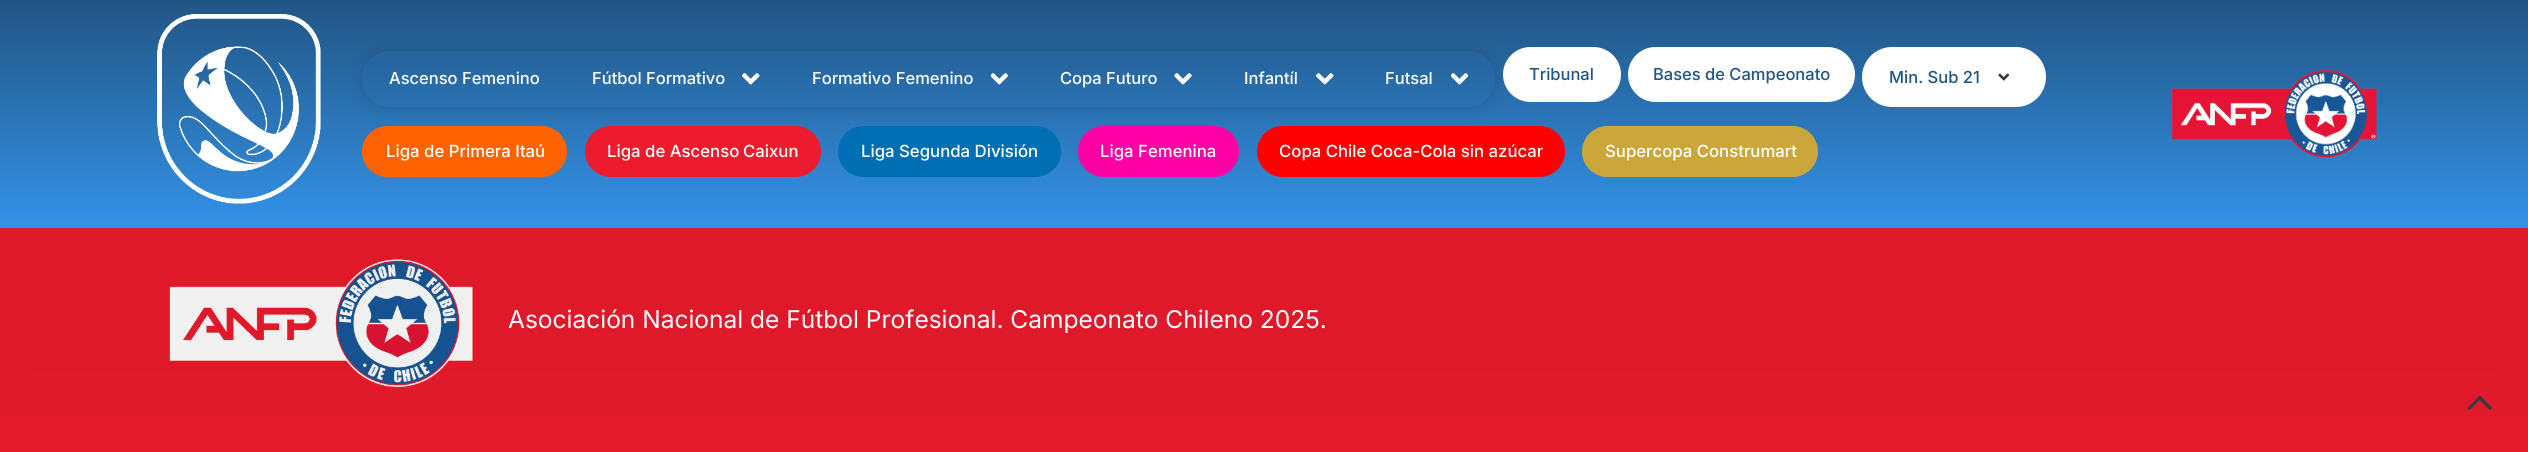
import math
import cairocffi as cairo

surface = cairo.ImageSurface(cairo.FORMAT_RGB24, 2528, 452)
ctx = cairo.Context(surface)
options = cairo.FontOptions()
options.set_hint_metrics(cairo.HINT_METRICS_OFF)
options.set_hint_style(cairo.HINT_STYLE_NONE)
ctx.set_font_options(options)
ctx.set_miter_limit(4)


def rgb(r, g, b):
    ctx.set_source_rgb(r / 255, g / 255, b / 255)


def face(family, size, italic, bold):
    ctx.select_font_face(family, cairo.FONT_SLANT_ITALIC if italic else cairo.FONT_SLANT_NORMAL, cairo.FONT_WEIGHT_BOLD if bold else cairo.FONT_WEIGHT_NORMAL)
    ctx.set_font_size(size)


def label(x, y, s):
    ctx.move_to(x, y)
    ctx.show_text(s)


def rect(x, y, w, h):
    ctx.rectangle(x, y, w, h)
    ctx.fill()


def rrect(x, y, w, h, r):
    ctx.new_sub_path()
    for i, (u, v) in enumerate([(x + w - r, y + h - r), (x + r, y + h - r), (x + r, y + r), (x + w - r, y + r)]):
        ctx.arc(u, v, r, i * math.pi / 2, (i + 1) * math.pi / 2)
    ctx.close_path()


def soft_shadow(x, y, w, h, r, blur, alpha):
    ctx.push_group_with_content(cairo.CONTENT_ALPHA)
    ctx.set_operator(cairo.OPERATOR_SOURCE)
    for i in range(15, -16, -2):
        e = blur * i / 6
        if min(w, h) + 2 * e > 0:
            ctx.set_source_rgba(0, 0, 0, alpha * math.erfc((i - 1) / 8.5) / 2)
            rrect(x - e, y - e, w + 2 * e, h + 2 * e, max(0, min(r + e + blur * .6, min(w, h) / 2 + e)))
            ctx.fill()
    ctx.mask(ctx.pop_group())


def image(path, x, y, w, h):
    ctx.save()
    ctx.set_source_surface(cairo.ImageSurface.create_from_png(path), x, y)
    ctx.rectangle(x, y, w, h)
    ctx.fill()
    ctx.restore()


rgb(237, 27, 45)
ctx.paint()
image('image7.png', 169, 259, 304, 128)
image('image8.png', 2467, 395, 25, 15)
rgb(0, 0, 0)
soft_shadow(-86, 89, 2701, 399, 0, 63, 0.06)
gradient = cairo.LinearGradient(1264, 0, 1264, 228)
gradient.add_color_stop_rgba(0, 0.129, 0.333, 0.518, 1)
gradient.add_color_stop_rgba(1, 0.204, 0.573, 0.906, 1)
ctx.set_source(gradient)
rect(0, 0, 2528, 228)
image('image0.png', 157, 14, 164, 190)
ctx.save()
ctx.set_fill_rule(cairo.FILL_RULE_EVEN_ODD)
ctx.new_path()
ctx.move_to(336, 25)
ctx.line_to(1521, 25)
ctx.line_to(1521, 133)
ctx.line_to(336, 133)
ctx.close_path()
ctx.move_to(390, 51)
ctx.line_to(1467, 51)
ctx.curve_to(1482.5, 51, 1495, 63.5, 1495, 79)
ctx.curve_to(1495, 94.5, 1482.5, 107, 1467, 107)
ctx.line_to(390, 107)
ctx.curve_to(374.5, 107, 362, 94.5, 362, 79)
ctx.curve_to(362, 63.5, 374.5, 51, 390, 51)
ctx.close_path()
ctx.clip()
rgb(0, 0, 0)
soft_shadow(364, 53, 1129, 52, 26, 9, 0.18)
ctx.restore()
face('Inter Medium', 16.5, 0, 0)
rgb(255, 255, 255)
label(389, 84, 'Ascenso Femenino')
label(592, 84, 'Fútbol Formativo')
image('image1.png', 742, 73, 18, 12)
label(812, 84, 'Formativo Femenino')
image('image2.png', 991, 73, 17, 12)
label(1060, 84, 'Copa Futuro')
image('image3.png', 1174, 73, 18, 12)
label(1244, 84, 'Infantíl')
image('image1.png', 1316, 73, 18, 12)
label(1385, 84, 'Futsal')
image('image4.png', 1451, 73, 17, 12)
rrect(1503, 47, 118, 55, 27.5)
ctx.fill()
rgb(33, 85, 132)
label(1529, 80, 'Tribunal')
rgb(255, 255, 255)
rrect(1628, 47, 227, 55, 27.5)
ctx.fill()
rgb(33, 85, 132)
label(1653, 80, 'Bases de Campeonato')
rgb(255, 255, 255)
rrect(1862, 47, 184, 60, 30)
ctx.fill()
rgb(33, 85, 132)
label(1889, 83, 'Min. Sub 21')
image('image5.png', 1998, 73, 12, 8)
rgb(255, 98, 0)
rrect(362, 126, 205, 51, 25.5)
ctx.fill()
face('Inter Medium', 16.75, 0, 0)
rgb(255, 255, 255)
label(386, 157, 'Liga de Primera Itaú')
rgb(237, 27, 45)
rrect(585, 126, 236, 51, 25.5)
ctx.fill()
rgb(255, 255, 255)
label(607, 157, 'Liga de Ascenso')
label(743, 157, 'Caixun')
rgb(0, 110, 178)
rrect(838, 126, 223, 51, 25.5)
ctx.fill()
rgb(255, 255, 255)
label(861, 157, 'Liga Segunda División')
rgb(255, 0, 164)
rrect(1078, 126, 161, 51, 25.5)
ctx.fill()
rgb(255, 255, 255)
label(1100, 157, 'Liga Femenina')
rgb(255, 0, 2)
rrect(1257, 126, 308, 51, 25.5)
ctx.fill()
rgb(255, 255, 255)
label(1279, 157, 'Copa Chile Coca-Cola sin azúcar')
rgb(203, 166, 59)
rrect(1582, 126, 236, 51, 25.5)
ctx.fill()
rgb(255, 255, 255)
label(1605, 157, 'Supercopa Construmart')
image('image6.png', 2171, 70, 206, 88)
face('Inter', 24.5, 0, 0)
label(508, 328, 'Asociación Nacional de Fútbol Profesional. Campeonato Chileno 2025.')
surface.write_to_png('render.png')
